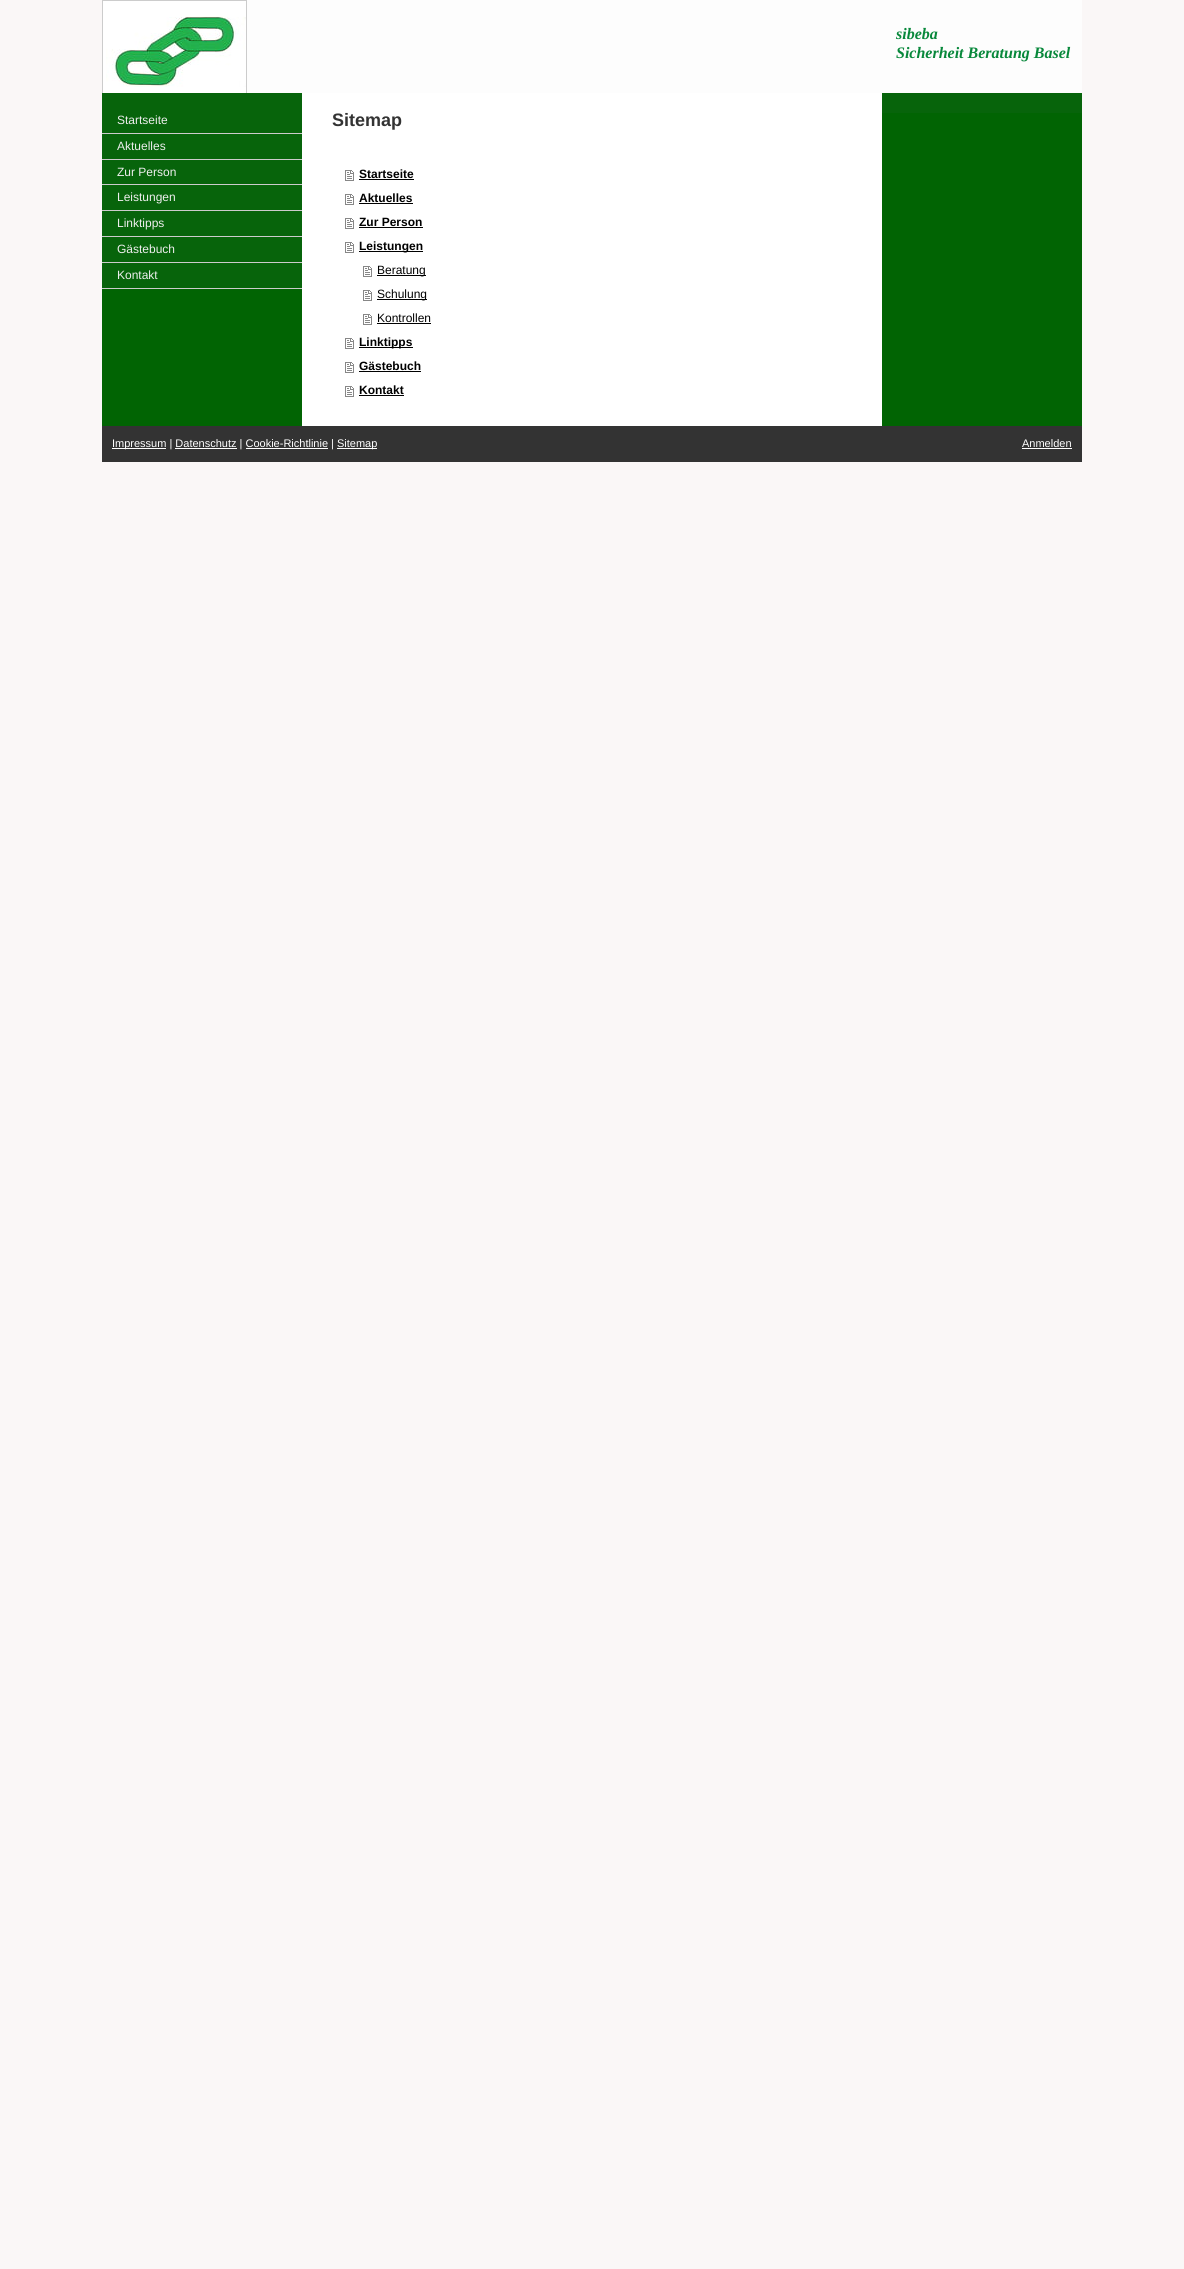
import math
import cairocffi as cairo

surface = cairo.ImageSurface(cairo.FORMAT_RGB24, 1184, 2269)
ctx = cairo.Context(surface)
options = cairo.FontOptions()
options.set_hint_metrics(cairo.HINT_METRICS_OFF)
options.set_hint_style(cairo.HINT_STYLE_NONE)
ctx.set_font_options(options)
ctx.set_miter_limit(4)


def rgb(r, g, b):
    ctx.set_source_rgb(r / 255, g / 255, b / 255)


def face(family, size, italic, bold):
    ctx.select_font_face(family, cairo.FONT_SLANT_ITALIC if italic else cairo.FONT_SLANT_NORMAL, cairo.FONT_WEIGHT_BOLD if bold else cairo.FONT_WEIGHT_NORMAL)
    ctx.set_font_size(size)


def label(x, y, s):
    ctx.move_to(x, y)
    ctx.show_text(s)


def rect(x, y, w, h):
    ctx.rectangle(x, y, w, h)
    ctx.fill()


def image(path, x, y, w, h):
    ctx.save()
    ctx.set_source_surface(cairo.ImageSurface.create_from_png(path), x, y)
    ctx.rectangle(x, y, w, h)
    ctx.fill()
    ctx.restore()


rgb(250, 247, 247)
ctx.paint()
image('image0.png', 102, 93, 980, 333)
rgb(253, 253, 253)
rect(247, 0, 835, 93)
rgb(255, 255, 255)
rect(103, 1, 143, 92)
rgb(7, 100, 11)
rect(102, 93, 200, 195)
ctx.save()
ctx.rectangle(102, 0, 980, 93)
ctx.clip()
ctx.rectangle(102.5, 0.5, 144, 100)
rgb(204, 204, 204)
ctx.set_line_width(1)
ctx.stroke()
ctx.restore()
image('image1.png', 106, 16, 140, 71)
face('Liberation Serif', 16, 1, 1)
rgb(8, 136, 59)
label(896, 39, 'sibeba')
label(896, 58, 'Sicherheit Beratung Basel')
rgb(7, 100, 11)
rect(882, 93, 200, 20)
rgb(204, 204, 204)
rect(102, 133, 200, 1)
face('Liberation Sans', 12, 0, 0)
rgb(238, 238, 238)
label(117, 124, 'Startseite')
rgb(204, 204, 204)
rect(102, 159, 200, 1)
rgb(238, 238, 238)
label(117, 150, 'Aktuelles')
rgb(204, 204, 204)
rect(102, 184, 200, 1)
rgb(238, 238, 238)
label(117, 176, 'Zur Person')
rgb(204, 204, 204)
rect(102, 210, 200, 1)
rgb(238, 238, 238)
label(117, 201, 'Leistungen')
rgb(204, 204, 204)
rect(102, 236, 200, 1)
rgb(238, 238, 238)
label(117, 227, 'Linktipps')
rgb(204, 204, 204)
rect(102, 262, 200, 1)
rgb(238, 238, 238)
label(117, 253, 'Gästebuch')
rgb(204, 204, 204)
rect(102, 288, 200, 1)
rgb(238, 238, 238)
label(117, 279, 'Kontakt')
face('Liberation Sans', 18, 0, 1)
rgb(51, 51, 51)
label(332, 126, 'Sitemap')
image('image2.png', 345, 170, 9, 11)
face('Liberation Sans', 12, 0, 1)
rgb(0, 0, 0)
label(359, 178, 'Startseite')
rect(359, 179, 55, 1)
image('image2.png', 345, 194, 9, 11)
label(359, 202, 'Aktuelles')
rect(359, 203, 54, 1)
image('image2.png', 345, 218, 9, 11)
label(359, 226, 'Zur Person')
rect(359, 227, 64, 1)
image('image2.png', 345, 242, 9, 11)
rect(359, 251, 64, 1)
label(359, 250, 'Leistungen')
image('image2.png', 363, 266, 9, 11)
rect(377, 275, 49, 1)
face('Liberation Sans', 12, 0, 0)
label(377, 274, 'Beratung')
image('image2.png', 363, 290, 9, 11)
rect(377, 299, 50, 1)
label(377, 298, 'Schulung')
image('image2.png', 363, 314, 9, 11)
label(377, 322, 'Kontrollen')
rect(377, 323, 54, 1)
image('image2.png', 345, 338, 9, 11)
rect(359, 347, 54, 1)
face('Liberation Sans', 12, 0, 1)
label(359, 346, 'Linktipps')
image('image2.png', 345, 362, 9, 11)
label(359, 370, 'Gästebuch')
rect(359, 371, 62, 1)
image('image2.png', 345, 386, 9, 11)
label(359, 394, 'Kontakt')
rect(359, 395, 45, 1)
rgb(51, 51, 51)
rect(102, 426, 980, 36)
rgb(255, 255, 255)
rect(112, 448, 54, 1)
face('Liberation Sans', 11, 0, 0)
label(112, 447, 'Impressum | Datenschutz | Cookie-Richtlinie |')
rect(337, 448, 40, 1)
label(337, 447, 'Sitemap')
rect(175, 448, 62, 1)
rect(246, 448, 82, 1)
label(1022, 447, 'Anmelden')
rect(1022, 448, 50, 1)
surface.write_to_png('render.png')
